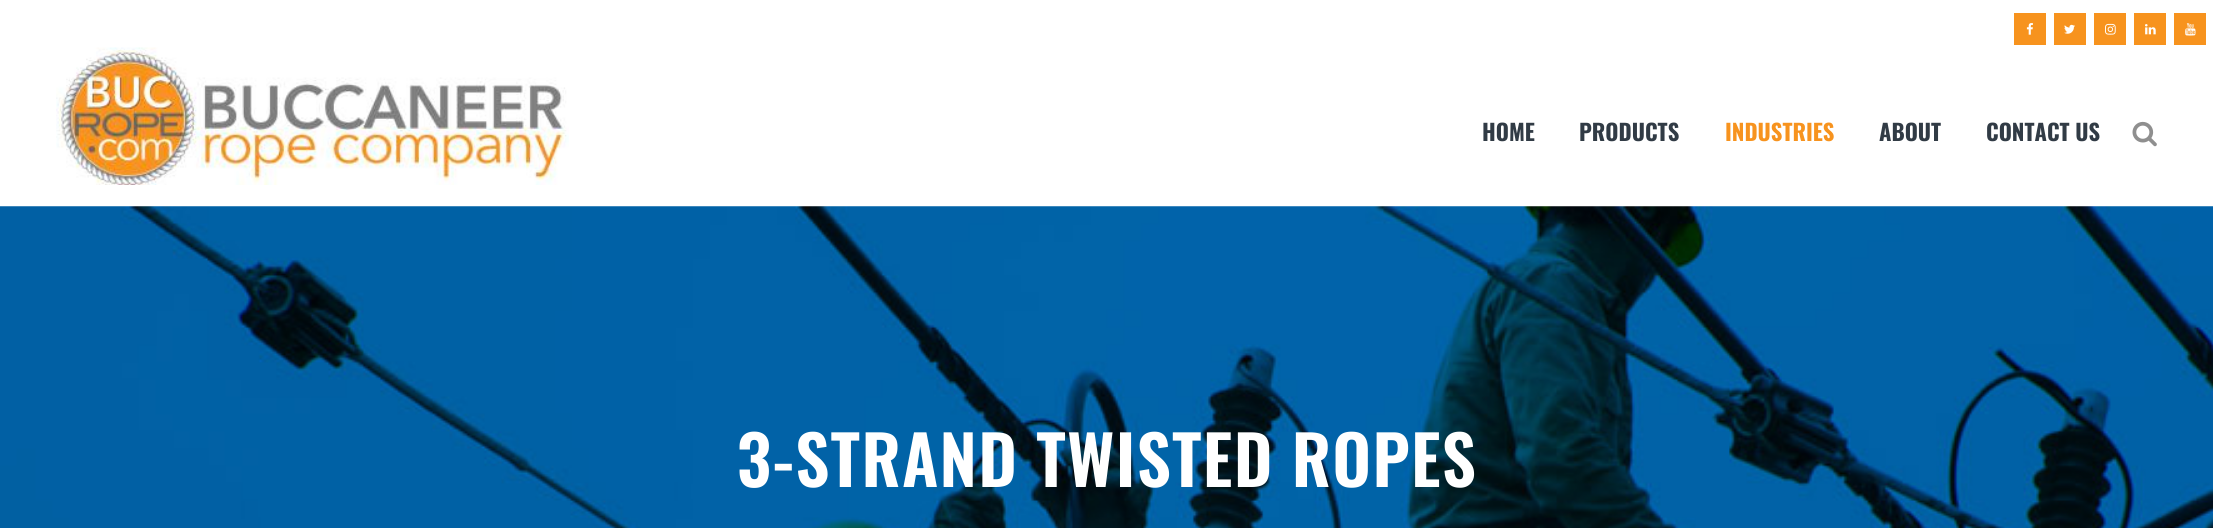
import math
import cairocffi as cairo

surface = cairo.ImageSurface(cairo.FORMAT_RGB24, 2213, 528)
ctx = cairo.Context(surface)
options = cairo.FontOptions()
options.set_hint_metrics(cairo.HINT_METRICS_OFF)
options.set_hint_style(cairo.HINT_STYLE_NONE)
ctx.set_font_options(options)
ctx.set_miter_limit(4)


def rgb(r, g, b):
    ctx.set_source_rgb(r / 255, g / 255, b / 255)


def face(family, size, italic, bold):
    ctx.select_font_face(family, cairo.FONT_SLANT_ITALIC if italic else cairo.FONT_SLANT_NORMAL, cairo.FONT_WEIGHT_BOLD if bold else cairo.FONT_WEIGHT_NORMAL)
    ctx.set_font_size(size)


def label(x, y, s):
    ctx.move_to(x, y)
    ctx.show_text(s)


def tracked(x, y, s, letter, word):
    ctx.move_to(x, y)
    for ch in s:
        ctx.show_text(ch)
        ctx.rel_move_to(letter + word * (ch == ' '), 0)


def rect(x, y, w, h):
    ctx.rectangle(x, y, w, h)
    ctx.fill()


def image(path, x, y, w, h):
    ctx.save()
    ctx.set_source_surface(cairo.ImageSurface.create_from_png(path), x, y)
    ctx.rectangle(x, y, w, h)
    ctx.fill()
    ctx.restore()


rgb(255, 255, 255)
ctx.paint()
rgb(247, 147, 30)
rect(2014, 13, 32, 32)
image('image0.png', 2026, 23, 7, 12)
rect(2054, 13, 32, 32)
image('image1.png', 2064, 24, 11, 10)
rect(2094, 13, 32, 32)
image('image2.png', 2105, 23, 11, 12)
rect(2134, 13, 32, 32)
image('image3.png', 2145, 24, 11, 11)
rect(2174, 13, 32, 32)
image('image4.png', 2185, 23, 11, 13)
image('image5.png', 56, 47, 513, 138)
face('Oswald', 22.5, 0, 1)
rgb(49, 59, 69)
label(1482, 141, 'HOME')
label(1579, 141, 'PRODUCTS')
rgb(247, 147, 30)
label(1725, 141, 'INDUSTRIES')
rgb(49, 59, 69)
label(1879, 141, 'ABOUT')
label(1986, 141, 'CONTACT US')
image('image6.png', 2132, 121, 25, 26)
image('image7.png', 0, 206, 2213, 322)
face('Oswald SemiBold', 67.5, 0, 0)
rgb(255, 255, 255)
tracked(737, 487, '3-STRAND TWISTED ROPES', 1.25, 0)
surface.write_to_png('render.png')
